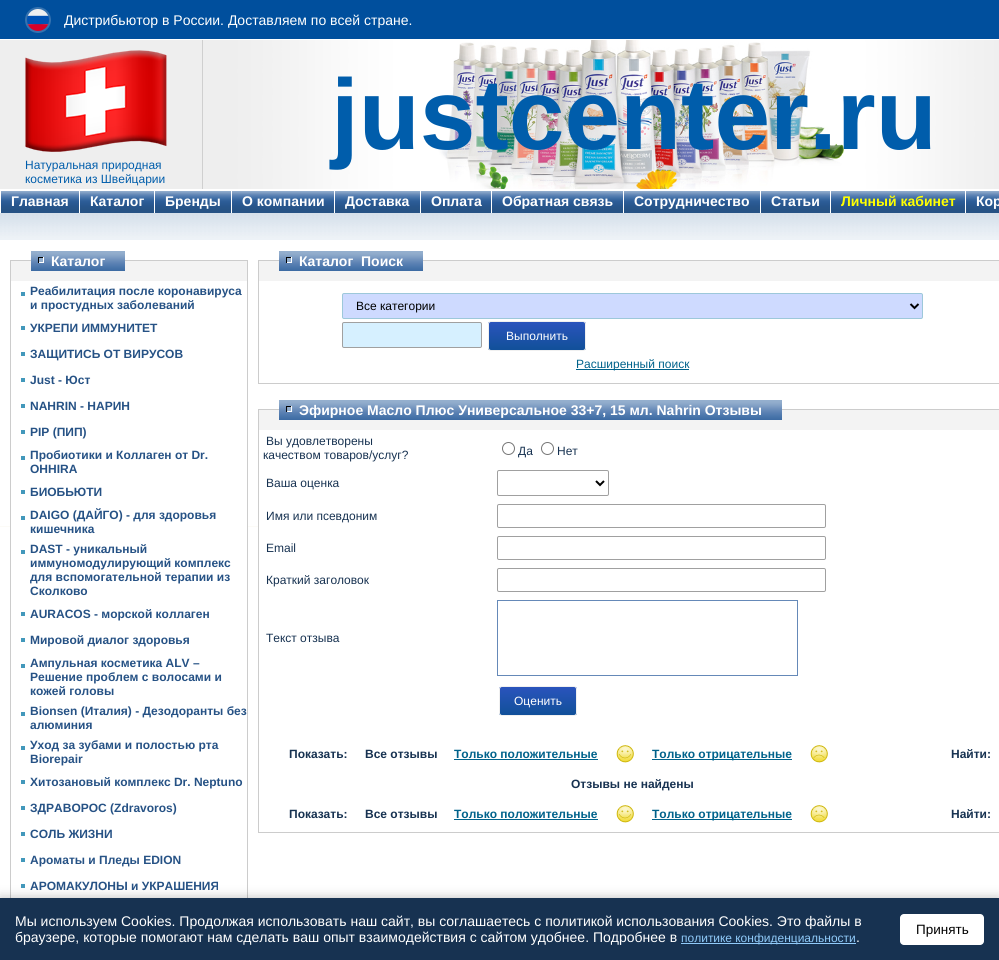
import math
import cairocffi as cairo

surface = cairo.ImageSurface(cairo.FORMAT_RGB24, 999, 960)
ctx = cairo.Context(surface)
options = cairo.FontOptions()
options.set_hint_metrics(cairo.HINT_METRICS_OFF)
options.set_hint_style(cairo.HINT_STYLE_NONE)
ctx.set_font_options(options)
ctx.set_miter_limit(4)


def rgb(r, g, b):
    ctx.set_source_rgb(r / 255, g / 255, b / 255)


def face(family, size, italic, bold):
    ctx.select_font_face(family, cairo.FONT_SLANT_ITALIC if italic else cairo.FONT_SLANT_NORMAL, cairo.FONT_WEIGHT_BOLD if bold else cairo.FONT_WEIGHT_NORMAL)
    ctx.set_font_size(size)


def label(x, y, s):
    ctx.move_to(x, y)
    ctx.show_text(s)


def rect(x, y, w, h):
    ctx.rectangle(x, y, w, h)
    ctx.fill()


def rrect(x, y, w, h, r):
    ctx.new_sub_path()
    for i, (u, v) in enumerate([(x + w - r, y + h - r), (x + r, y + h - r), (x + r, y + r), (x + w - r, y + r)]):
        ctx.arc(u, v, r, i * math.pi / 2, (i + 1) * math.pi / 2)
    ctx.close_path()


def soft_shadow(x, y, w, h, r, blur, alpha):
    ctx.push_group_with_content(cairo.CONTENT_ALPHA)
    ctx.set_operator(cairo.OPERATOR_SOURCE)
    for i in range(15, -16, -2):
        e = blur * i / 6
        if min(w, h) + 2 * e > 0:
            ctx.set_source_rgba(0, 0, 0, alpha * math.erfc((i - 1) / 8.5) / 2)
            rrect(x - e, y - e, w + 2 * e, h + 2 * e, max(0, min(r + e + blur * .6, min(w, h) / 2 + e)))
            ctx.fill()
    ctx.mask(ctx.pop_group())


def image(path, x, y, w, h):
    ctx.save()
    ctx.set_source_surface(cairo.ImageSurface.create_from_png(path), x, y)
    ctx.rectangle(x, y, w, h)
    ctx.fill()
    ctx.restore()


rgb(255, 255, 255)
ctx.paint()
rgb(252, 251, 247)
rect(0, 526, 258, 1)
rgb(0, 79, 157)
rect(0, 0, 999, 39)
image('image0.png', 25, 7, 26, 26)
face('Liberation Sans', 14, 0, 0)
rgb(255, 255, 255)
label(64, 25, 'Дистрибьютор в России. Доставляем по всей стране.')
image('image1.png', 0, 40, 999, 149)
face('Liberation Sans', 100, 0, 1)
rgb(0, 93, 171)
label(331, 149, 'justcenter.ru')
rgb(207, 207, 207)
rect(202, 40, 1, 149)
image('image2.png', 25, 50, 142, 102)
face('Liberation Sans', 12, 0, 0)
rgb(0, 93, 171)
label(25, 169, 'Натуральная природная')
label(25, 183, 'косметика из Швейцарии')
image('image3.png', 0, 213, 999, 27)
image('image4.png', 1, 190, 78, 23)
face('Liberation Sans', 14, 0, 1)
rgb(255, 255, 255)
label(11, 206, 'Главная')
image('image5.png', 80, 190, 74, 23)
label(90, 206, 'Каталог')
image('image6.png', 155, 190, 76, 23)
label(165, 206, 'Бренды')
image('image7.png', 232, 190, 102, 23)
label(242, 206, 'О компании')
image('image8.png', 335, 190, 85, 23)
label(345, 206, 'Доставка')
image('image9.png', 421, 190, 70, 23)
label(431, 206, 'Оплата')
image('image10.png', 492, 190, 131, 23)
label(502, 206, 'Обратная связь')
image('image11.png', 624, 190, 136, 23)
label(634, 206, 'Сотрудничество')
image('image12.png', 761, 190, 69, 23)
label(771, 206, 'Статьи')
image('image13.png', 831, 190, 134, 23)
rgb(255, 255, 0)
label(841, 206, 'Личный кабинет')
image('image14.png', 966, 190, 33, 23)
rgb(255, 255, 255)
label(976, 206, 'Кор')
rgb(204, 204, 204)
rect(125, 260, 123, 1)
rgb(243, 243, 243)
rect(11, 261, 236, 20)
image('image15.png', 31, 251, 94, 20)
rgb(255, 255, 255)
label(51, 266, 'Каталог')
rgb(204, 204, 204)
rect(10, 260, 21, 1)
rect(10, 260, 1, 638)
rect(247, 260, 1, 638)
rgb(255, 255, 255)
rect(11, 526, 236, 1)
rgb(66, 152, 187)
rect(21, 292, 4, 4)
face('Liberation Sans', 12, 0, 1)
rgb(38, 82, 133)
label(30, 295, 'Реабилитация после коронавируса')
label(30, 309, 'и простудных заболеваний')
rgb(66, 152, 187)
rect(21, 326, 4, 4)
rgb(38, 82, 133)
label(30, 332, 'УКРЕПИ ИММУНИТЕТ')
rgb(66, 152, 187)
rect(21, 352, 4, 4)
rgb(38, 82, 133)
label(30, 358, 'ЗАЩИТИСЬ ОТ ВИРУСОВ')
rgb(66, 152, 187)
rect(21, 378, 4, 4)
rgb(38, 82, 133)
label(30, 384, 'Just - Юст')
rgb(66, 152, 187)
rect(21, 404, 4, 4)
rgb(38, 82, 133)
label(30, 410, 'NAHRIN - НАРИН')
rgb(66, 152, 187)
rect(21, 430, 4, 4)
rgb(38, 82, 133)
label(30, 436, 'PIP (ПИП)')
rgb(66, 152, 187)
rect(21, 456, 4, 4)
rgb(38, 82, 133)
label(30, 459, 'Пробиотики и Коллаген от Dr.')
label(30, 473, 'OHHIRА')
rgb(66, 152, 187)
rect(21, 490, 4, 4)
rgb(38, 82, 133)
label(30, 496, 'БИОБЬЮТИ')
rgb(66, 152, 187)
rect(21, 516, 4, 4)
rgb(38, 82, 133)
label(30, 519, 'DAIGO (ДАЙГО) - для здоровья')
label(30, 533, 'кишечника')
rgb(66, 152, 187)
rect(21, 550, 4, 4)
rgb(38, 82, 133)
label(30, 553, 'DAST - уникальный')
label(30, 567, 'иммуномодулирующий комплекс')
label(30, 581, 'для вспомогательной терапии из')
label(30, 595, 'Сколково')
rgb(66, 152, 187)
rect(21, 612, 4, 4)
rgb(38, 82, 133)
label(30, 618, 'AURACOS - морской коллаген')
rgb(66, 152, 187)
rect(21, 638, 4, 4)
rgb(38, 82, 133)
label(30, 644, 'Мировой диалог здоровья')
rgb(66, 152, 187)
rect(21, 664, 4, 4)
rgb(38, 82, 133)
label(30, 667, 'Ампульная косметика ALV –')
label(30, 681, 'Решение проблем с волосами и')
label(30, 695, 'кожей головы')
rgb(66, 152, 187)
rect(21, 712, 4, 4)
rgb(38, 82, 133)
label(30, 715, 'Bionsen (Италия) - Дезодоранты без')
label(30, 729, 'алюминия')
rgb(66, 152, 187)
rect(21, 746, 4, 4)
rgb(38, 82, 133)
label(30, 749, 'Уход за зубами и полостью рта')
label(30, 763, 'Biorepair')
rgb(66, 152, 187)
rect(21, 780, 4, 4)
rgb(38, 82, 133)
label(30, 786, 'Хитозановый комплекс Dr. Neptuno')
rgb(66, 152, 187)
rect(21, 806, 4, 4)
rgb(38, 82, 133)
label(30, 812, 'ЗДРАВОРОС (Zdravoros)')
rgb(66, 152, 187)
rect(21, 832, 4, 4)
rgb(38, 82, 133)
label(30, 838, 'СОЛЬ ЖИЗНИ')
rgb(66, 152, 187)
rect(21, 858, 4, 4)
rgb(38, 82, 133)
label(30, 864, 'Ароматы и Пледы EDION')
rgb(66, 152, 187)
rect(21, 884, 4, 4)
rgb(38, 82, 133)
label(30, 890, 'АРОМАКУЛОНЫ и УКРАШЕНИЯ')
rgb(204, 204, 204)
rect(423, 260, 576, 1)
rgb(243, 243, 243)
rect(259, 261, 740, 20)
image('image16.png', 279, 251, 144, 20)
face('Liberation Sans', 14, 0, 1)
rgb(255, 255, 255)
label(299, 266, 'Каталог  Поиск')
rgb(204, 204, 204)
rect(258, 260, 21, 1)
rect(258, 260, 1, 124)
rgb(206, 218, 255)
rrect(342.5, 293.5, 580, 25, 1.5)
ctx.fill_preserve()
rgb(157, 200, 218)
ctx.set_line_width(1)
ctx.stroke()
ctx.new_path()
ctx.move_to(910.5, 304)
ctx.line_to(914.5, 308)
ctx.line_to(918.5, 304)
rgb(0, 0, 0)
ctx.set_line_width(2)
ctx.stroke()
face('Liberation Sans', 12, 0, 0)
label(356, 310, 'Все категории')
rgb(214, 240, 255)
rrect(342.5, 322.5, 139, 25, 1.5)
ctx.fill_preserve()
rgb(160, 160, 160)
ctx.set_line_width(1)
ctx.stroke()
ctx.save()
rrect(488, 321, 98, 30, 3)
ctx.clip()
gradient = cairo.LinearGradient(537, 350, 537, 322)
gradient.add_color_stop_rgba(0, 0.067, 0.314, 0.6, 1)
gradient.add_color_stop_rgba(1, 0.165, 0.329, 0.741, 1)
ctx.set_source(gradient)
rect(488, 322, 98, 28)
ctx.restore()
rrect(488.5, 321.5, 97, 29, 2.5)
rgb(240, 240, 240)
ctx.stroke()
rgb(255, 255, 255)
label(506, 340, 'Выполнить')
rgb(0, 98, 139)
rect(576, 369, 113, 1)
label(576, 368, 'Расширенный поиск')
rgb(204, 204, 204)
rect(259, 383, 740, 1)
rect(782, 409, 217, 1)
rgb(243, 243, 243)
rect(259, 410, 740, 20)
image('image17.png', 279, 400, 503, 20)
face('Liberation Sans', 14, 0, 1)
rgb(255, 255, 255)
label(299, 415, 'Эфирное Масло Плюс Универсальное 33+7, 15 мл. Nahrin Отзывы')
rgb(204, 204, 204)
rect(258, 409, 21, 1)
rect(258, 409, 1, 424)
face('Liberation Sans', 12, 0, 0)
rgb(23, 50, 81)
label(266, 445, 'Вы удовлетворены')
label(263, 459, 'качеством товаров/услуг?')
ctx.new_path()
ctx.arc(508.5, 448.5, 6, 0, 2 * math.pi)
rgb(118, 118, 118)
ctx.stroke()
rgb(23, 50, 81)
label(518, 455, 'Да')
ctx.new_path()
ctx.arc(547.5, 448.5, 6, 0, 2 * math.pi)
rgb(118, 118, 118)
ctx.stroke()
rgb(23, 50, 81)
label(557, 455, 'Нет')
label(266, 487, 'Ваша оценка')
rrect(497.5, 470.5, 111, 25, 1.5)
rgb(160, 160, 160)
ctx.stroke()
ctx.new_path()
ctx.move_to(596, 481)
ctx.line_to(600, 485)
ctx.line_to(604, 481)
rgb(0, 0, 0)
ctx.set_line_width(2)
ctx.stroke()
rgb(23, 50, 81)
label(266, 520, 'Имя или псевдоним')
rrect(497.5, 504.5, 328, 23, 1.5)
rgb(160, 160, 160)
ctx.set_line_width(1)
ctx.stroke()
rgb(23, 50, 81)
label(266, 552, 'Email')
rrect(497.5, 536.5, 328, 23, 1.5)
rgb(160, 160, 160)
ctx.stroke()
rgb(23, 50, 81)
label(266, 584, 'Краткий заголовок')
rrect(497.5, 568.5, 328, 23, 1.5)
rgb(160, 160, 160)
ctx.stroke()
rgb(23, 50, 81)
label(266, 642, 'Текст отзыва')
ctx.rectangle(497.5, 600.5, 300, 75)
rgb(101, 137, 184)
ctx.stroke()
ctx.save()
rrect(499, 686, 78, 30, 3)
ctx.clip()
gradient = cairo.LinearGradient(538, 715, 538, 687)
gradient.add_color_stop_rgba(0, 0.067, 0.314, 0.6, 1)
gradient.add_color_stop_rgba(1, 0.165, 0.329, 0.741, 1)
ctx.set_source(gradient)
rect(499, 687, 78, 28)
ctx.restore()
rrect(499.5, 686.5, 77, 29, 2.5)
rgb(240, 240, 240)
ctx.stroke()
rgb(255, 255, 255)
label(514, 705, 'Оценить')
face('Liberation Sans', 12, 0, 1)
rgb(23, 50, 81)
label(289, 758, 'Показать:')
label(365, 758, 'Все отзывы')
rgb(0, 98, 139)
label(454, 758, 'Только положительные')
rect(454, 759, 144, 1)
image('image18.png', 616, 745, 18, 18)
rect(652, 759, 140, 1)
label(652, 758, 'Только отрицательные')
image('image19.png', 810, 745, 18, 18)
rgb(23, 50, 81)
label(951, 758, 'Найти:')
label(571, 788, 'Отзывы не найдены')
label(289, 818, 'Показать:')
label(365, 818, 'Все отзывы')
rgb(0, 98, 139)
label(454, 818, 'Только положительные')
rect(454, 819, 144, 1)
image('image18.png', 616, 805, 18, 18)
rect(652, 819, 140, 1)
label(652, 818, 'Только отрицательные')
image('image19.png', 810, 805, 18, 18)
rgb(23, 50, 81)
label(951, 818, 'Найти:')
rgb(204, 204, 204)
rect(259, 832, 740, 1)
rgb(0, 0, 0)
soft_shadow(0, 896, 999, 62, 0, 5, 0.2)
rgb(23, 50, 81)
rect(0, 898, 999, 62)
face('Liberation Sans', 14, 0, 0)
rgb(255, 255, 255)
label(15, 926, 'Мы используем Cookies. Продолжая использовать наш сайт, вы соглашаетесь с политикой использования Cookies. Это файлы в')
label(15, 942, 'браузере, которые помогают нам сделать ваш опыт взаимодействия с сайтом удобнее. Подробнее в')
rgb(144, 202, 249)
rect(681, 943, 175, 1)
face('Liberation Sans', 12, 0, 0)
label(681, 942, 'политике конфиденциальности')
face('Liberation Sans', 14, 0, 0)
rgb(255, 255, 255)
label(856, 942, '.')
rrect(900, 914, 84, 31, 4)
ctx.fill()
face('Liberation Sans', 13.5, 0, 0)
rgb(0, 0, 0)
label(916, 934, 'Принять')
surface.write_to_png('render.png')
